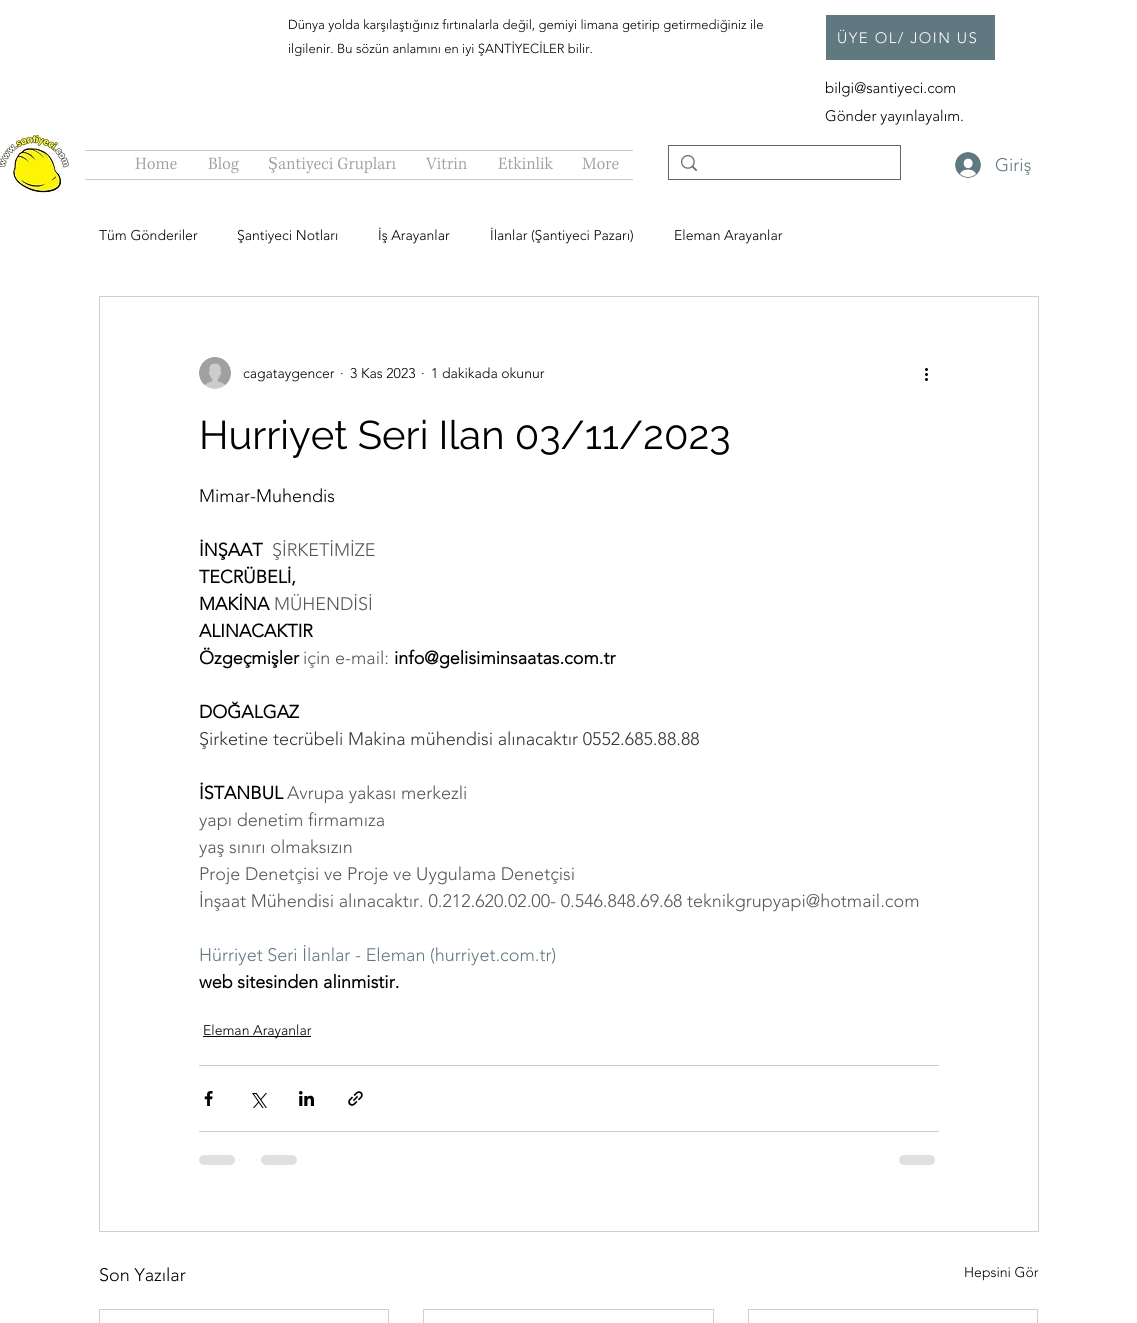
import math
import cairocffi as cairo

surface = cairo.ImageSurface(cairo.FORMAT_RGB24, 1137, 1323)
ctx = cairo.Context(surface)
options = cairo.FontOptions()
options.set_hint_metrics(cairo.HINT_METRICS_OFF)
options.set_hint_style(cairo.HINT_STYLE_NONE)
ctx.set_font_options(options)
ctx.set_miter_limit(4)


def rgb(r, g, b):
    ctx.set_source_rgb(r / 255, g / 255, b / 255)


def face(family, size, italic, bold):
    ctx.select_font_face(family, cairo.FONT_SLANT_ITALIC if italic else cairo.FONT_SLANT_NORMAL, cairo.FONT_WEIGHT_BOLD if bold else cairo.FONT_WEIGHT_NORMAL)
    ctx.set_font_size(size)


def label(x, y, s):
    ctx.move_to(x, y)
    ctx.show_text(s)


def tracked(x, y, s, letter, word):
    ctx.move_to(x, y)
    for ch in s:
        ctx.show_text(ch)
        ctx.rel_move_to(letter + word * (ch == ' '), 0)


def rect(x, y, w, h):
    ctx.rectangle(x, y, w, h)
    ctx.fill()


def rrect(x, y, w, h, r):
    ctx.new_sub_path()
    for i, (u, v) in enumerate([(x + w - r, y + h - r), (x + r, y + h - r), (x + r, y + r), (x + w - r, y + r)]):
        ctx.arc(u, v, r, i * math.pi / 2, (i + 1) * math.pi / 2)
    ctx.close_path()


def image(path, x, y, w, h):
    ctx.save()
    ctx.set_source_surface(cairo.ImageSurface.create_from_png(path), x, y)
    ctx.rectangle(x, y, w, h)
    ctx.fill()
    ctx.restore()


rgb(255, 255, 255)
ctx.paint()
face('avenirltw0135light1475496 Light', 13, 0, 0)
rgb(0, 0, 0)
label(288, 29, 'Dünya yolda karşılaştığınız fırtınalarla değil, gemiyi limana getirip getirmediğiniz ile')
label(288, 53, 'ilgilenir. Bu sözün anlamını en iyi ŞANTİYECİLER bilir.')
rgb(96, 121, 128)
rect(826, 15, 169, 45)
face('avenirltw0135light1475496 Light', 15, 0, 0)
rgb(255, 255, 255)
tracked(837, 43, 'ÜYE OL/ JOIN US', 1.5, 0)
rgb(0, 0, 0)
label(825, 93, 'bilgi@santiyeci.com')
label(825, 121, 'Gönder yayınlayalım.')
image('image0.png', 0, 135, 72, 60)
rgb(202, 202, 202)
rect(85, 150, 548, 1)
rect(85, 179, 548, 1)
image('image1.png', 135, 157, 42, 13)
image('image2.png', 208, 157, 31, 17)
face('Liberation Serif', 18, 0, 0)
rgb(158, 158, 158)
label(268, 169, 'Ş')
image('image3.png', 278, 157, 118, 17)
image('image4.png', 426, 157, 41, 13)
image('image5.png', 498, 157, 56, 13)
image('image6.png', 582, 157, 37, 13)
ctx.rectangle(668.5, 145.5, 232, 34)
rgb(102, 102, 102)
ctx.set_line_width(1)
ctx.stroke()
image('image7.png', 681, 155, 16, 16)
image('image8.png', 955, 152, 26, 26)
face('avenirltw0135light1475496 Light', 18, 0, 0)
rgb(96, 121, 128)
label(995, 171, 'Giriş')
face('avenirltw0135light1475496 Light', 14, 0, 0)
rgb(0, 0, 0)
label(99, 240, 'Tüm Gönderiler')
label(237, 240, 'Şantiyeci Notları')
label(378, 240, 'İş Arayanlar')
label(490, 240, 'İlanlar (Şantiyeci Pazarı)')
label(674, 240, 'Eleman Arayanlar')
ctx.rectangle(99.5, 296.5, 939, 935)
rgb(207, 207, 207)
ctx.stroke()
image('image9.png', 199, 357, 32, 32)
rgb(0, 0, 0)
label(243, 378, 'cagataygencer')
label(340, 378, '·')
label(350, 378, '3 Kas 2023')
label(421, 378, '·')
label(431, 378, '1 dakikada okunur')
image('image10.png', 925, 368, 3, 13)
face('Raleway', 40, 0, 0)
label(199, 449, 'Hurriyet Seri Ilan 03/11/2023')
face('avenirltw0135light1475496 Light', 18, 0, 0)
label(199, 502, 'Mimar-Muhendis')
face('avenirltw0135light1475496', 18, 0, 1)
label(199, 556, 'İNŞAAT')
face('avenirltw0135light1475496 Light', 18, 0, 0)
rgb(86, 86, 86)
label(272, 556, 'ŞİRKETİMİZE')
face('avenirltw0135light1475496', 18, 0, 1)
rgb(0, 0, 0)
label(199, 583, 'TECRÜBELİ,')
label(199, 610, 'MAKİNA')
face('avenirltw0135light1475496 Light', 18, 0, 0)
rgb(86, 86, 86)
label(274, 610, 'MÜHENDİSİ')
face('avenirltw0135light1475496', 18, 0, 1)
rgb(0, 0, 0)
label(199, 637, 'ALINACAKTIR')
label(199, 664, 'Özgeçmişler')
face('avenirltw0135light1475496 Light', 18, 0, 0)
rgb(86, 86, 86)
label(303, 664, 'için e-mail:')
face('avenirltw0135light1475496', 18, 0, 1)
rgb(0, 0, 0)
label(394, 664, 'info@gelisiminsaatas.com.tr')
label(199, 718, 'DOĞALGAZ')
face('avenirltw0135light1475496 Light', 18, 0, 0)
rgb(51, 51, 51)
label(199, 745, 'Şirketine tecrübeli Makina mühendisi alınacaktır 0552.685.88.88')
face('avenirltw0135light1475496', 18, 0, 1)
rgb(0, 0, 0)
label(199, 799, 'İSTANBUL')
face('avenirltw0135light1475496 Light', 18, 0, 0)
rgb(86, 86, 86)
label(287, 799, 'Avrupa yakası merkezli')
label(199, 826, 'yapı denetim firmamıza')
label(199, 853, 'yaş sınırı olmaksızın')
label(199, 880, 'Proje Denetçisi ve Proje ve Uygulama Denetçisi')
label(199, 907, 'İnşaat Mühendisi alınacaktır. 0.212.620.02.00- 0.546.848.69.68 teknikgrupyapi@hotmail.com')
rgb(96, 121, 128)
label(199, 961, 'Hürriyet Seri İlanlar - Eleman (hurriyet.com.tr)')
face('avenirltw0135light1475496', 18, 0, 1)
rgb(0, 0, 0)
label(199, 988, 'web sitesinden alinmistir.')
rect(203, 1036, 108, 1)
face('avenirltw0135light1475496 Light', 14, 0, 0)
label(203, 1035, 'Eleman Arayanlar')
rgb(204, 204, 204)
rect(199, 1065, 740, 1)
image('image11.png', 204, 1091, 9, 15)
image('image12.png', 252, 1093, 15, 15)
image('image13.png', 299, 1091, 15, 15)
image('image14.png', 348, 1091, 15, 15)
rect(199, 1131, 740, 1)
rgb(224, 224, 224)
rrect(199, 1155, 36, 10, 5)
ctx.fill()
rrect(261, 1155, 36, 10, 5)
ctx.fill()
rrect(899, 1155, 36, 10, 5)
ctx.fill()
face('avenirltw0135light1475496 Light', 18, 0, 0)
rgb(0, 0, 0)
label(99, 1281, 'Son Yazılar')
face('avenirltw0135light1475496 Light', 14, 0, 0)
label(964, 1277, 'Hepsini Gör')
ctx.rectangle(99.5, 1309.5, 289, 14)
rgb(207, 207, 207)
ctx.stroke()
ctx.rectangle(423.5, 1309.5, 290, 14)
ctx.stroke()
ctx.rectangle(748.5, 1309.5, 289, 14)
ctx.stroke()
surface.write_to_png('render.png')
